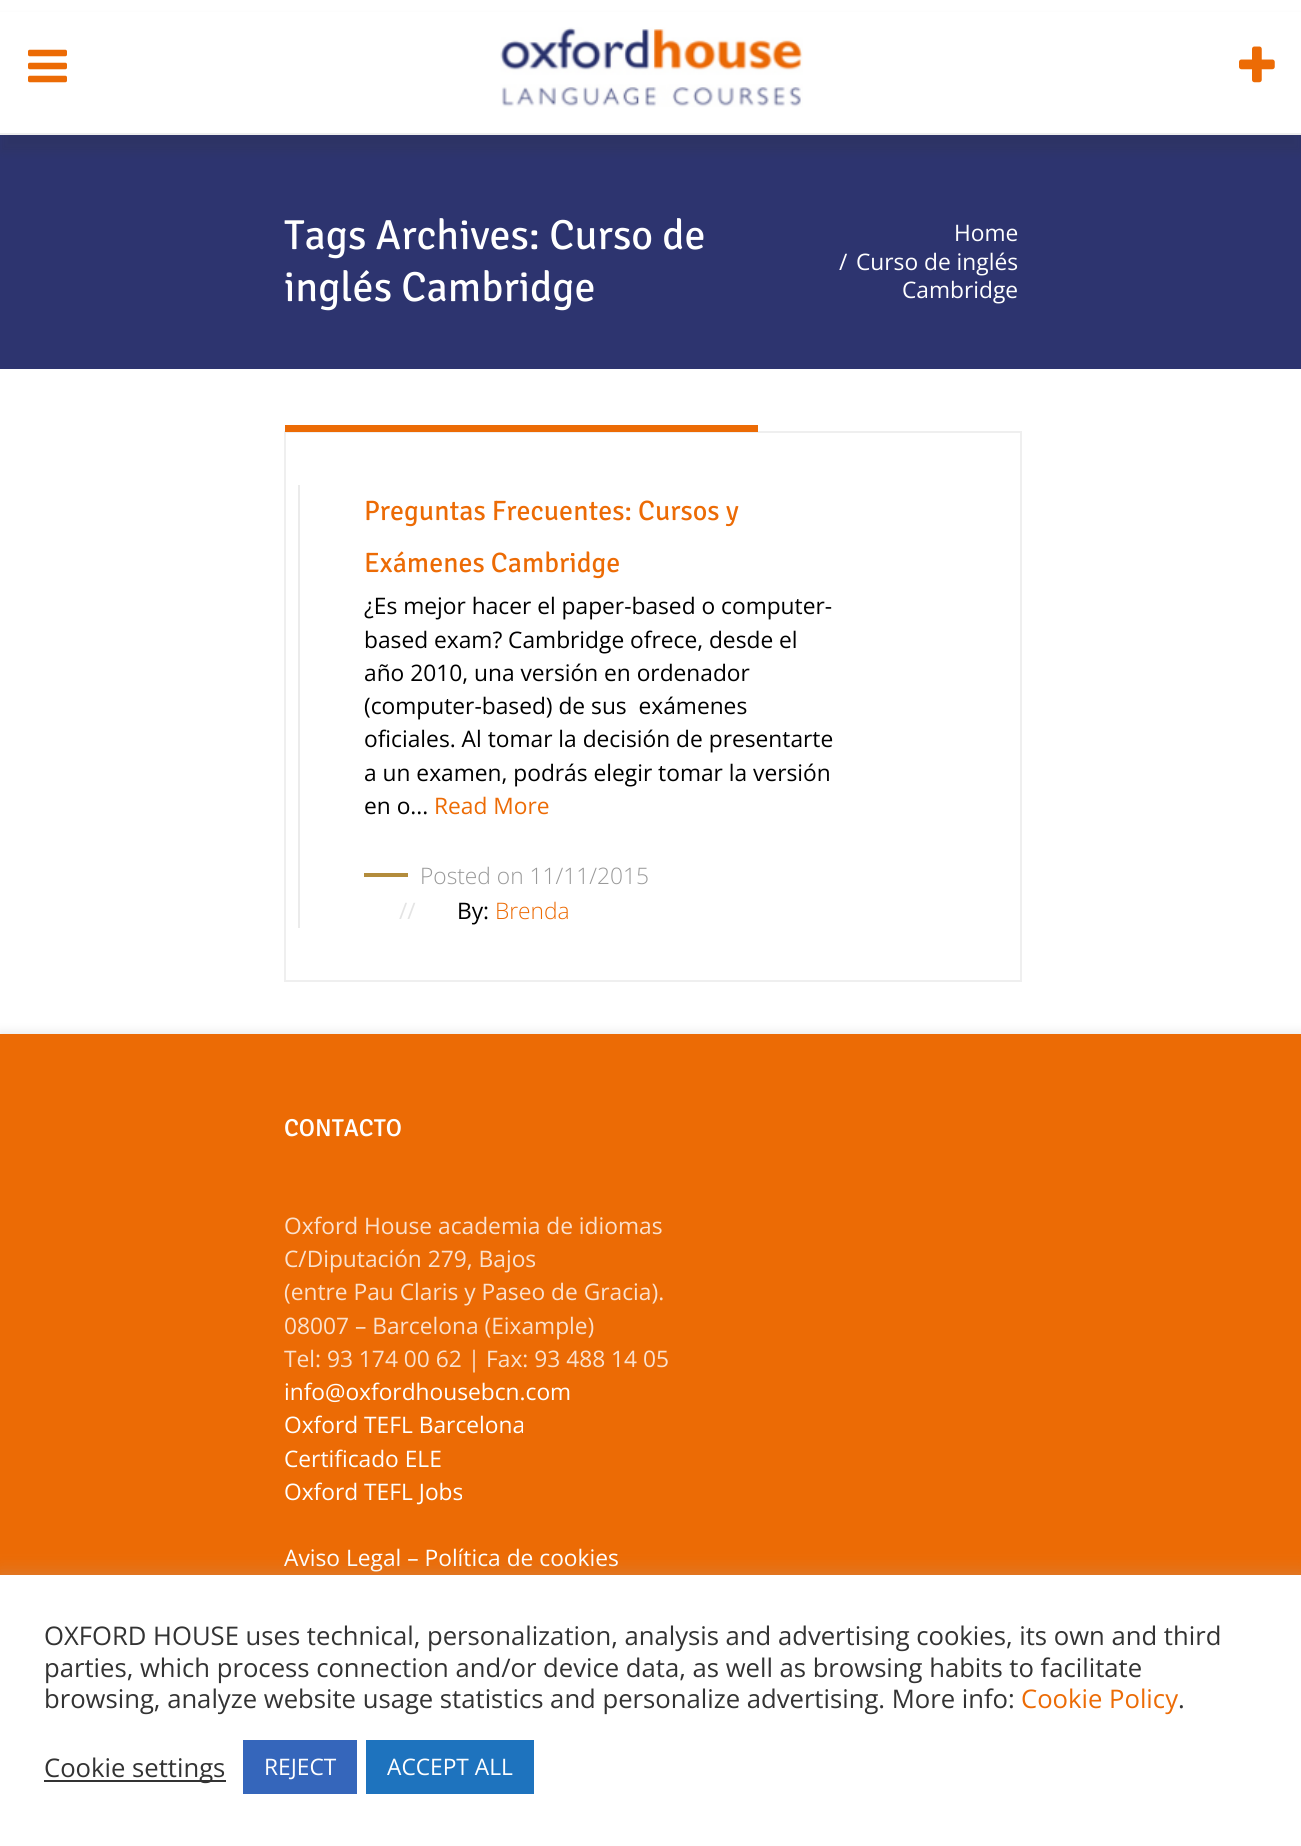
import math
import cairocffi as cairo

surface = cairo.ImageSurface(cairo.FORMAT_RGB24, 1301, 1846)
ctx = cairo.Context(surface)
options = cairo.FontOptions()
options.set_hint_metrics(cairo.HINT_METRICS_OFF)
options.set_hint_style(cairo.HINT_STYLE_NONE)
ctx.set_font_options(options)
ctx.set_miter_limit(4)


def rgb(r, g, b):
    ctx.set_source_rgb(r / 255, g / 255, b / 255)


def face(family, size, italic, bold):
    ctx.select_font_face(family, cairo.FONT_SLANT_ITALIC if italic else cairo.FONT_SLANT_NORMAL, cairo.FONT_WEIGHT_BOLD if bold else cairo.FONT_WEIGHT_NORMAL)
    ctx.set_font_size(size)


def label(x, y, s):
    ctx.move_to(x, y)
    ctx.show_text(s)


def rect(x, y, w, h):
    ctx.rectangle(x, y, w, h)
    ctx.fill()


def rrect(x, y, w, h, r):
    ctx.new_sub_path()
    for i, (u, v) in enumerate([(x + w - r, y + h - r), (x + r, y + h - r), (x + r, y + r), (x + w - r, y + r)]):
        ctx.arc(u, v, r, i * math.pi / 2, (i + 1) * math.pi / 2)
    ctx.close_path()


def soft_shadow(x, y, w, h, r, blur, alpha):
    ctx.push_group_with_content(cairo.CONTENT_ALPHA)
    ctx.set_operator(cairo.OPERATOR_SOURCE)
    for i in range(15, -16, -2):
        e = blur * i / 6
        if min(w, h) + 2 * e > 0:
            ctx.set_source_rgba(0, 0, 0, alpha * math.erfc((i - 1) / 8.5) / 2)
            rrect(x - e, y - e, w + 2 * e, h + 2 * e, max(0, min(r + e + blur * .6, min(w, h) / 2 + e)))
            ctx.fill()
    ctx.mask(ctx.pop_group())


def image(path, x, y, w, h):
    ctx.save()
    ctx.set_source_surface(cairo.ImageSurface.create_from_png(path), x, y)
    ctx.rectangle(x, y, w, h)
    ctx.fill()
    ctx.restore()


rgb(255, 255, 255)
ctx.paint()
rgb(45, 52, 111)
rect(0, 135, 1301, 234)
rgb(50, 50, 50)
soft_shadow(0, 18, 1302, 134, 0, 4.5, 0.15)
rgb(255, 255, 255)
rect(0, 12, 1301, 121)
rgb(238, 238, 238)
rect(0, 133, 1301, 2)
image('image0.png', 28, 49, 39, 34)
image('image1.png', 500, 27, 303, 80)
image('image2.png', 1239, 46, 36, 37)
face('Signika Negative', 42, 0, 0)
rgb(255, 255, 255)
label(284, 249, 'Tags Archives: Curso de')
label(284, 301, 'inglés Cambridge')
face('Open Sans', 22.75, 0, 0)
label(954, 241, 'Home')
label(839, 270, '/')
label(856, 270, 'Curso de inglés')
label(902, 298, 'Cambridge')
ctx.rectangle(285, 432, 736, 549)
rgb(239, 239, 239)
ctx.stroke()
rgb(236, 107, 5)
rect(285, 425, 473, 7)
rgb(235, 235, 235)
rect(298, 485, 2, 443)
face('Signika Negative', 28, 0, 0)
rgb(236, 107, 5)
label(364, 520, 'Preguntas Frecuentes: Cursos y')
label(364, 572, 'Exámenes Cambridge')
face('Open Sans', 22.75, 0, 0)
rgb(0, 0, 0)
label(364, 614, '¿Es mejor hacer el paper-based o computer-')
label(364, 648, 'based exam? Cambridge ofrece, desde el')
label(364, 681, 'año 2010, una versión en ordenador')
label(364, 714, '(computer-based) de sus  exámenes')
label(364, 747, 'oficiales. Al tomar la decisión de presentarte')
label(364, 781, 'a un examen, podrás elegir tomar la versión')
label(364, 814, 'en o...')
rgb(236, 107, 5)
label(434, 814, 'Read More')
rgb(179, 140, 60)
rect(364, 873, 44, 4)
face('Open Sans Light', 22.75, 0, 0)
rgb(153, 153, 153)
label(420, 884, 'Posted on 11/11/2015')
face('Open Sans', 22.75, 0, 0)
rgb(228, 228, 228)
label(399, 919, '//')
rgb(0, 0, 0)
label(457, 919, 'By:')
face('Open Sans Light', 22.75, 0, 0)
rgb(236, 107, 5)
label(495, 919, 'Brenda')
rgb(237, 237, 237)
soft_shadow(0, 1031, 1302, 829, 0, 4.5, 1)
rgb(236, 107, 5)
rect(0, 1034, 1301, 541)
face('Signika Negative Medium', 24.5, 0, 0)
rgb(255, 255, 255)
label(284, 1136, 'CONTACTO')
face('Open Sans', 22.75, 0, 0)
rgb(251, 225, 205)
label(284, 1234, 'Oxford House academia de idiomas')
label(284, 1267, 'C/Diputación 279, Bajos')
label(284, 1300, '(entre Pau Claris y Paseo de Gracia).')
label(284, 1334, '08007 – Barcelona (Eixample)')
label(284, 1367, 'Tel: 93 174 00 62 | Fax: 93 488 14 05')
rgb(255, 255, 255)
label(284, 1400, 'info@oxfordhousebcn.com')
label(284, 1433, 'Oxford TEFL Barcelona')
label(284, 1467, 'Certificado ELE')
label(284, 1500, 'Oxford TEFL Jobs')
label(284, 1566, 'Aviso Legal – Política de cookies')
rgb(172, 171, 171)
soft_shadow(0, 1573, 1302, 272, 0, 9, 0.3)
rgb(255, 255, 255)
rect(0, 1575, 1301, 271)
face('Open Sans', 25.65, 0, 0)
rgb(51, 51, 51)
label(44, 1645, 'OXFORD HOUSE uses technical, personalization, analysis and advertising cookies, its own and third')
label(44, 1677, 'parties, which process connection and/or device data, as well as browsing habits to facilitate')
label(44, 1708, 'browsing, analyze website usage statistics and personalize advertising. More info:')
rgb(236, 107, 5)
label(1021, 1708, 'Cookie Policy')
rgb(51, 51, 51)
label(1178, 1708, '.')
rect(44, 1780, 182, 2)
label(44, 1777, 'Cookie settings')
rgb(53, 102, 187)
rect(243, 1740, 114, 54)
face('Open Sans', 22.75, 0, 0)
rgb(255, 255, 255)
label(264, 1775, 'REJECT')
rgb(30, 115, 190)
rect(366, 1740, 168, 54)
rgb(255, 255, 255)
label(387, 1775, 'ACCEPT ALL')
surface.write_to_png('render.png')
